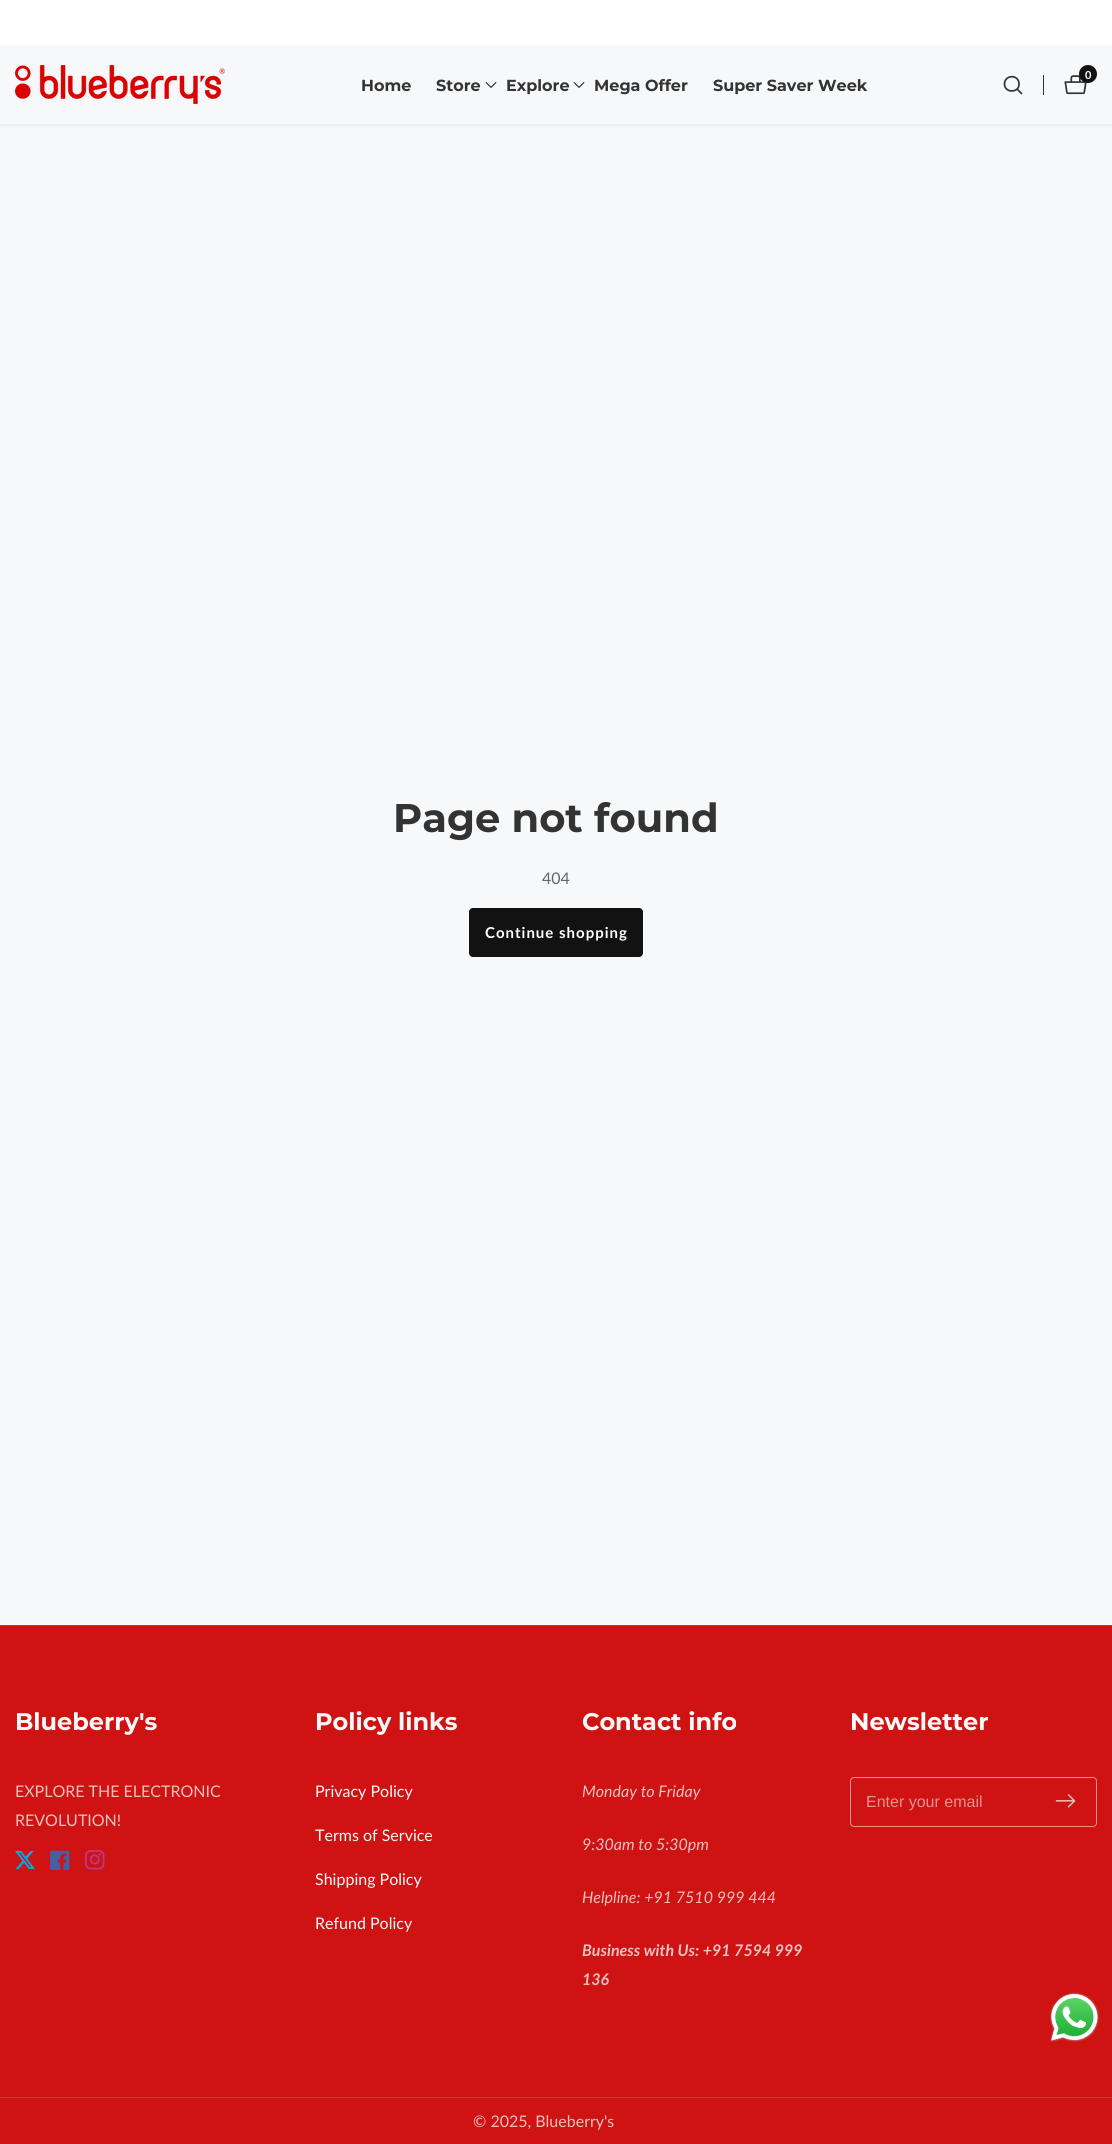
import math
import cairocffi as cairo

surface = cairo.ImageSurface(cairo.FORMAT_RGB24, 1112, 2144)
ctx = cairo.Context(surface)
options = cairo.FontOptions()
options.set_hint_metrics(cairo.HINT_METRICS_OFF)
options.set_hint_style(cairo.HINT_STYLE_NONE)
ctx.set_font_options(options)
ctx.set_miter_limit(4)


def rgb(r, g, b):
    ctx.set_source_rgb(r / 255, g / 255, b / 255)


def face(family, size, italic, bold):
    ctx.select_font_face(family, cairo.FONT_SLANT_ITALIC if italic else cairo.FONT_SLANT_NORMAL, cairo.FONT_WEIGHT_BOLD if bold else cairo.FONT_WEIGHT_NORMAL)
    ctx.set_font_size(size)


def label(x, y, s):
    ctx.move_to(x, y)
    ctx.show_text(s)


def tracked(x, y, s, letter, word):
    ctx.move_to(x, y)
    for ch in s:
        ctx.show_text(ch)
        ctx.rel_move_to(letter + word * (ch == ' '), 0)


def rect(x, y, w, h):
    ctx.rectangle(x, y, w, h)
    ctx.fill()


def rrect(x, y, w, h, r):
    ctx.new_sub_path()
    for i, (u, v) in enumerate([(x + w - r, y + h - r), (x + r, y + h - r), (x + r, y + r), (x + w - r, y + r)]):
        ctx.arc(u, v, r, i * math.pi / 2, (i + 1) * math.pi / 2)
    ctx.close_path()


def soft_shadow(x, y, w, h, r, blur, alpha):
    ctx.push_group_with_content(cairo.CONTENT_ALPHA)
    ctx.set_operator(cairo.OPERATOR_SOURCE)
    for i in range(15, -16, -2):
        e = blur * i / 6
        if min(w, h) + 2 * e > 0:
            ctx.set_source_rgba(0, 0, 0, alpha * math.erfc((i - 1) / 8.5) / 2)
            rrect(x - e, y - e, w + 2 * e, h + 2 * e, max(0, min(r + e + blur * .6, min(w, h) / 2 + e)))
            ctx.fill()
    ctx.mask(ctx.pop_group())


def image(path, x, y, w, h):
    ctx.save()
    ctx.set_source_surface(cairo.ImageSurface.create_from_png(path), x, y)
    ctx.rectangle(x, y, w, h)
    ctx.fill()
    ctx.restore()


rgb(247, 248, 249)
ctx.paint()
rgb(255, 255, 255)
rect(0, 0, 1112, 46)
ctx.save()
ctx.set_fill_rule(cairo.FILL_RULE_EVEN_ODD)
ctx.new_path()
ctx.move_to(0, 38)
ctx.line_to(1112, 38)
ctx.line_to(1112, 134)
ctx.line_to(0, 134)
ctx.close_path()
ctx.move_to(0, 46)
ctx.line_to(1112, 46)
ctx.line_to(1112, 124)
ctx.line_to(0, 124)
ctx.close_path()
ctx.clip()
rgb(51, 51, 51)
soft_shadow(0, 47, 1112, 78, 0, 2.5, 0.1)
ctx.restore()
image('image0.png', 15, 65, 210, 39)
ctx.new_path()
ctx.move_to(1017, 89)
ctx.line_to(1021.5, 93.5)
ctx.move_to(1004.5, 84)
ctx.curve_to(1004.5, 93.5, 1019.5, 93, 1019, 84)
ctx.curve_to(1019, 74, 1004.5, 74.5, 1004.5, 84)
ctx.close_path()
rgb(51, 51, 51)
ctx.set_line_width(1.7)
ctx.set_line_cap(cairo.LINE_CAP_ROUND)
ctx.set_line_join(cairo.LINE_JOIN_ROUND)
ctx.stroke()
rect(1043, 75, 1, 20)
image('image1.png', 1064, 75, 23, 20)
rgb(18, 18, 18)
ctx.arc(1088, 74, 9, 0, 2 * math.pi)
ctx.fill()
face('Lato', 11, 0, 1)
rgb(255, 255, 255)
label(1085, 79, '0')
face('Montserrat', 16, 0, 1)
rgb(51, 51, 51)
label(361, 91, 'Home')
label(436, 91, 'Store')
image('image2.png', 485, 82, 12, 6)
label(506, 91, 'Explore')
image('image2.png', 573, 82, 12, 6)
label(594, 91, 'Mega Offer')
label(713, 91, 'Super Saver Week')
face('Montserrat', 40, 0, 1)
label(393, 832, 'Page not found')
face('Lato', 16, 0, 0)
rgb(100, 100, 101)
label(542, 884, '404')
rgb(18, 18, 18)
rrect(469, 908, 174, 49, 4)
ctx.fill()
face('Lato', 15, 0, 1)
rgb(255, 255, 255)
tracked(485, 938, 'Continue shopping', 1, 0)
rgb(206, 19, 18)
rect(0, 1626, 1112, 518)
rgb(210, 42, 41)
rect(0, 1625, 1112, 1)
face('Montserrat', 24, 0, 1)
rgb(249, 249, 249)
label(15, 1730, 'Blueberry\'s')
face('Lato', 16, 0, 0)
rgb(238, 192, 191)
label(15, 1797, 'EXPLORE THE ELECTRONIC')
label(15, 1826, 'REVOLUTION!')
image('image3.png', 15, 1850, 20, 20)
image('image4.png', 50, 1850, 20, 20)
image('image5.png', 85, 1850, 20, 20)
face('Montserrat', 24, 0, 1)
rgb(249, 249, 249)
label(315, 1730, 'Policy links')
face('Lato', 16, 0, 0)
label(315, 1797, 'Privacy Policy')
label(315, 1841, 'Terms of Service')
label(315, 1885, 'Shipping Policy')
label(315, 1929, 'Refund Policy')
face('Montserrat', 24, 0, 1)
label(582, 1730, 'Contact info')
face('Lato', 16, 1, 0)
rgb(238, 192, 191)
label(582, 1797, 'Monday to Friday')
label(582, 1850, '9:30am to 5:30pm')
label(582, 1903, 'Helpline: +91 7510 999 444')
face('Lato', 16, 1, 1)
label(582, 1956, 'Business with Us: +91 7594 999')
label(582, 1985, '136')
face('Montserrat', 24, 0, 1)
rgb(249, 249, 249)
label(850, 1730, 'Newsletter')
rrect(850.5, 1777.5, 246, 49, 3.5)
rgb(230, 146, 145)
ctx.set_line_width(1)
ctx.set_line_cap(cairo.LINE_CAP_BUTT)
ctx.set_line_join(cairo.LINE_JOIN_MITER)
ctx.stroke()
face('Liberation Sans', 16, 0, 0)
label(866, 1807, 'Enter your email')
image('image6.png', 1055, 1794, 21, 14)
rgb(212, 54, 53)
rect(0, 2097, 1112, 1)
face('Lato', 16, 0, 0)
rgb(238, 192, 191)
label(473, 2127, '© 2025, Blueberry\'s')
image('image7.png', 1049, 1992, 51, 50)
surface.write_to_png('render.png')
